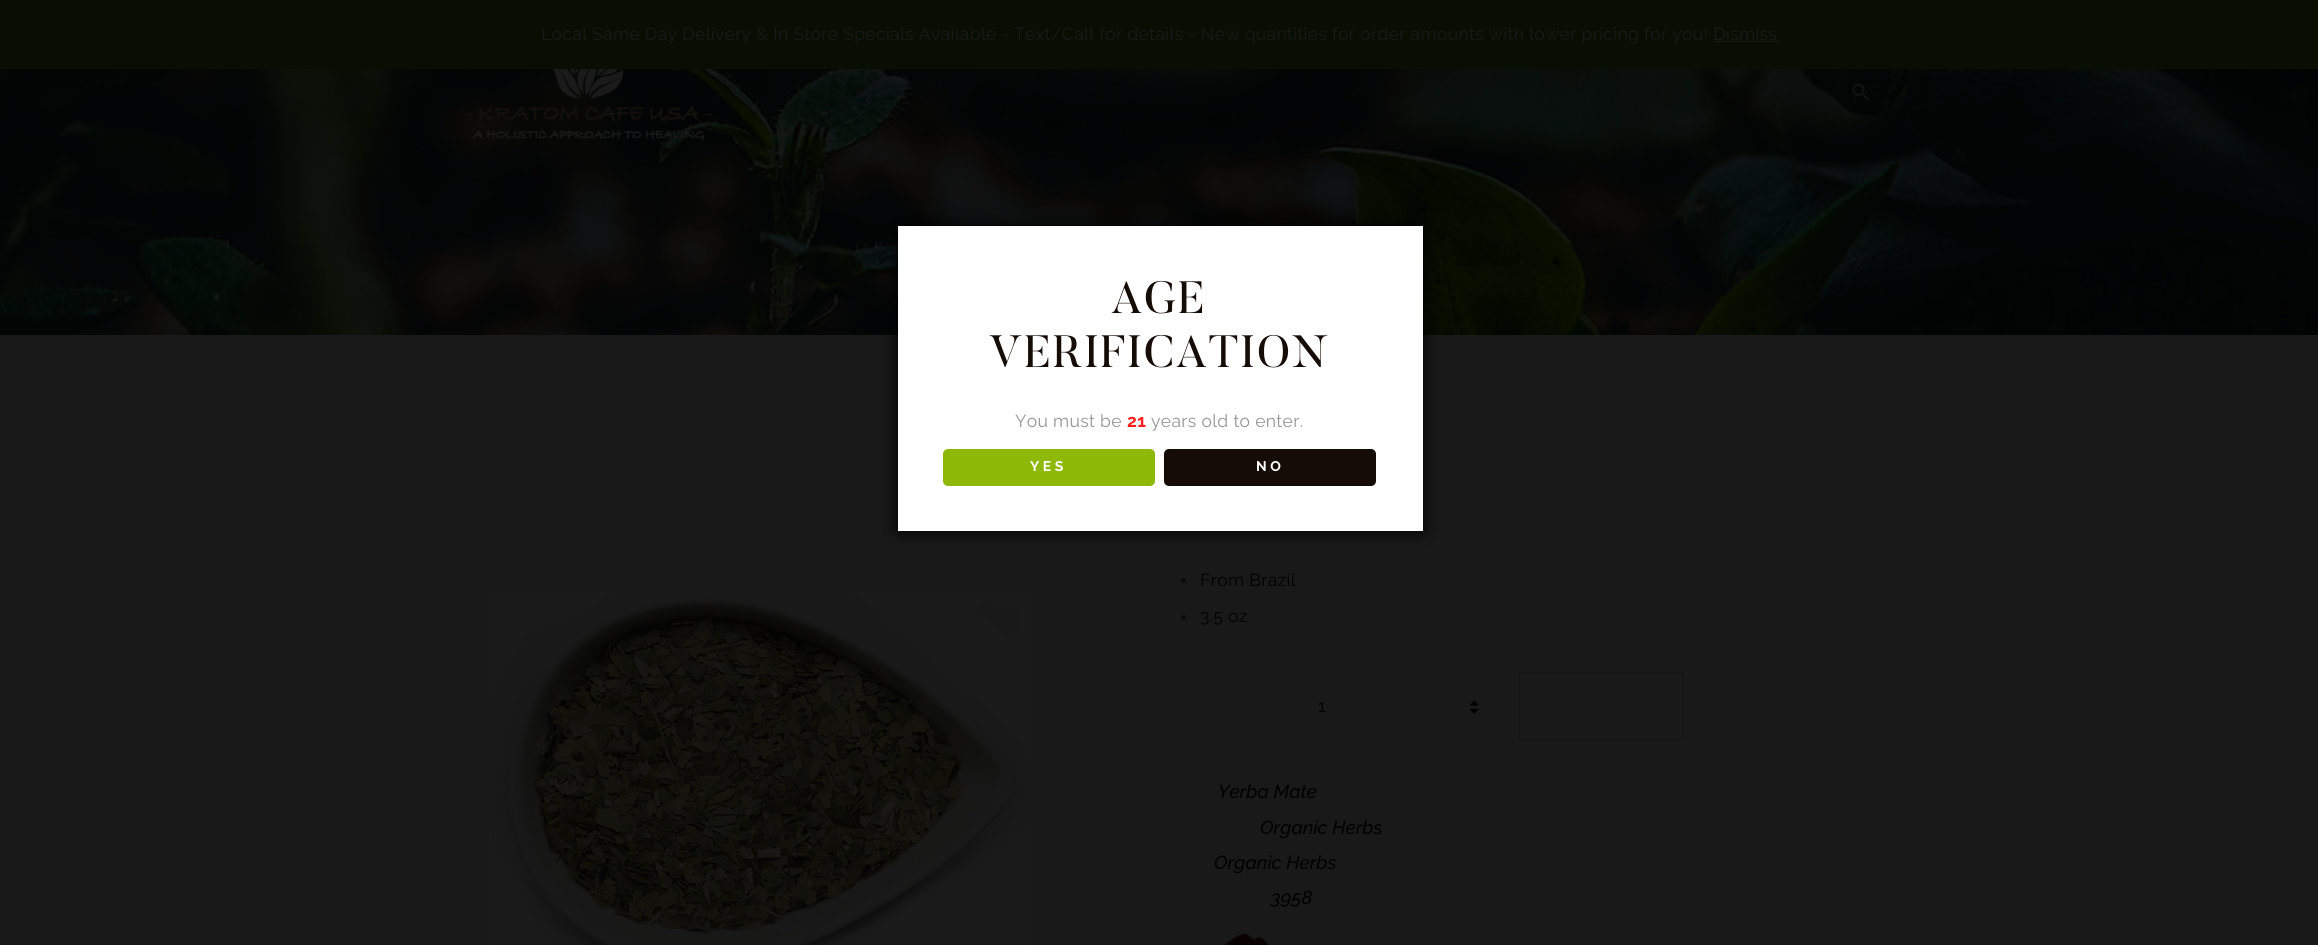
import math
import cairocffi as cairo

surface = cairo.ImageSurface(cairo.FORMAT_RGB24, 2318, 945)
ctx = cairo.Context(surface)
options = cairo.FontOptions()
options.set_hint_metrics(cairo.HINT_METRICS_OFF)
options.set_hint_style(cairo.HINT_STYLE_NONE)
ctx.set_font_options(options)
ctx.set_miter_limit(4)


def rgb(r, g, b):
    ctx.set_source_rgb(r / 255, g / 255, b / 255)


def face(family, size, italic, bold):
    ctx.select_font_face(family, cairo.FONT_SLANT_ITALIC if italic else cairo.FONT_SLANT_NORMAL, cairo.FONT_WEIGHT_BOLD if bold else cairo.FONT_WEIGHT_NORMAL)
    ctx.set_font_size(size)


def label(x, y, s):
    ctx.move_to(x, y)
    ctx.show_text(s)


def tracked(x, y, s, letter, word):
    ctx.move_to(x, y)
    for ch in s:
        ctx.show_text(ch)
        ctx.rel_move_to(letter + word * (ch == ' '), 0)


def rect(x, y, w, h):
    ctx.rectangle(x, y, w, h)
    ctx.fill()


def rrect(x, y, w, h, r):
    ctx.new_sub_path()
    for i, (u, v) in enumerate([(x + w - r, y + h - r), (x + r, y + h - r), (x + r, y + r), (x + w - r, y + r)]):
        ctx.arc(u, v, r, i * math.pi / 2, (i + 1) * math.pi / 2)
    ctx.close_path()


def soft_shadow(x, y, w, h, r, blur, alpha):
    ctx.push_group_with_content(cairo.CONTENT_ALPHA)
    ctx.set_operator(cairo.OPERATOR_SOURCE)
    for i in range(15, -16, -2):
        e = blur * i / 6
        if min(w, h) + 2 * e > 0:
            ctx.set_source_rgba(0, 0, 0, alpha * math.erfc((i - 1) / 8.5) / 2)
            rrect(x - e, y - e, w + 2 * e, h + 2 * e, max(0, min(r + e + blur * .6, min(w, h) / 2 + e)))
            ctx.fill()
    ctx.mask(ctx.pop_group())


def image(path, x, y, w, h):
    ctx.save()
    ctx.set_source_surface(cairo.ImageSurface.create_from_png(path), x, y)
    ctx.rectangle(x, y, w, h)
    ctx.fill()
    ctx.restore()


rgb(25, 25, 25)
ctx.paint()
rgb(8, 14, 2)
rect(0, 0, 2318, 69)
face('Raleway', 17.5, 0, 0)
rgb(25, 25, 25)
tracked(541, 40, 'Local Same Day Delivery & In Store Specials Available - Text/Call for details - New quantities for order amounts with lower pricing for you! Dismiss', 0.35, 0)
rect(1714, 41, 64, 1)
image('image0.png', 0, 69, 2318, 266)
rgb(0, 0, 0)
soft_shadow(898, 226, 525, 305, 0, 9.5, 1)
rgb(255, 255, 255)
rect(898, 226, 525, 305)
face('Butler', 45, 0, 0)
rgb(22, 12, 6)
tracked(1111, 313, 'AGE', 1.75, 0)
tracked(989, 367, 'VERIFICATION', 1.75, 0)
face('Raleway', 17.5, 0, 0)
rgb(149, 149, 149)
tracked(1015, 427, 'You must be', 0.35, 0)
face('Raleway', 17.5, 0, 1)
rgb(255, 31, 31)
tracked(1127, 427, '21', 0.35, 0)
face('Raleway', 17.5, 0, 0)
rgb(149, 149, 149)
tracked(1151, 427, 'years old to enter.', 0.35, 0)
rgb(142, 185, 8)
rrect(943, 449, 212, 37, 5)
ctx.fill()
face('Raleway', 14, 0, 1)
rgb(255, 255, 255)
tracked(1030, 471, 'YES', 3.5, 0)
rgb(22, 12, 6)
rrect(1164, 449, 212, 37, 5)
ctx.fill()
rgb(255, 255, 255)
tracked(1256, 471, 'NO', 3.5, 0)
image('image1.png', 464, 69, 249, 73)
image('image2.png', 1852, 83, 17, 17)
image('image3.png', 489, 591, 542, 354)
rgb(12, 12, 12)
ctx.arc(1183.5, 580.5, 2.5, 0, 2 * math.pi)
ctx.fill()
face('Raleway', 17.5, 0, 0)
rgb(0, 0, 0)
tracked(1200, 586, 'From Brazil', 0.35, 0)
rgb(12, 12, 12)
ctx.new_path()
ctx.arc(1183.5, 617.5, 2.5, 0, 2 * math.pi)
ctx.fill()
rgb(0, 0, 0)
tracked(1200, 622, '3.5 oz', 0.35, 0)
label(1318, 712, '1')
image('image4.png', 1470, 700, 9, 6)
image('image5.png', 1470, 708, 9, 6)
ctx.rectangle(1519.5, 673.5, 164, 66)
rgb(22, 20, 18)
ctx.set_line_width(1)
ctx.stroke()
face('Raleway Medium', 18.75, 1, 0)
rgb(0, 0, 0)
label(1218, 798, 'Yerba Mate')
label(1260, 834, 'Organic Herbs')
label(1214, 869, 'Organic Herbs')
label(1271, 904, '3958')
image('image6.png', 1223, 933, 47, 12)
surface.write_to_png('render.png')
